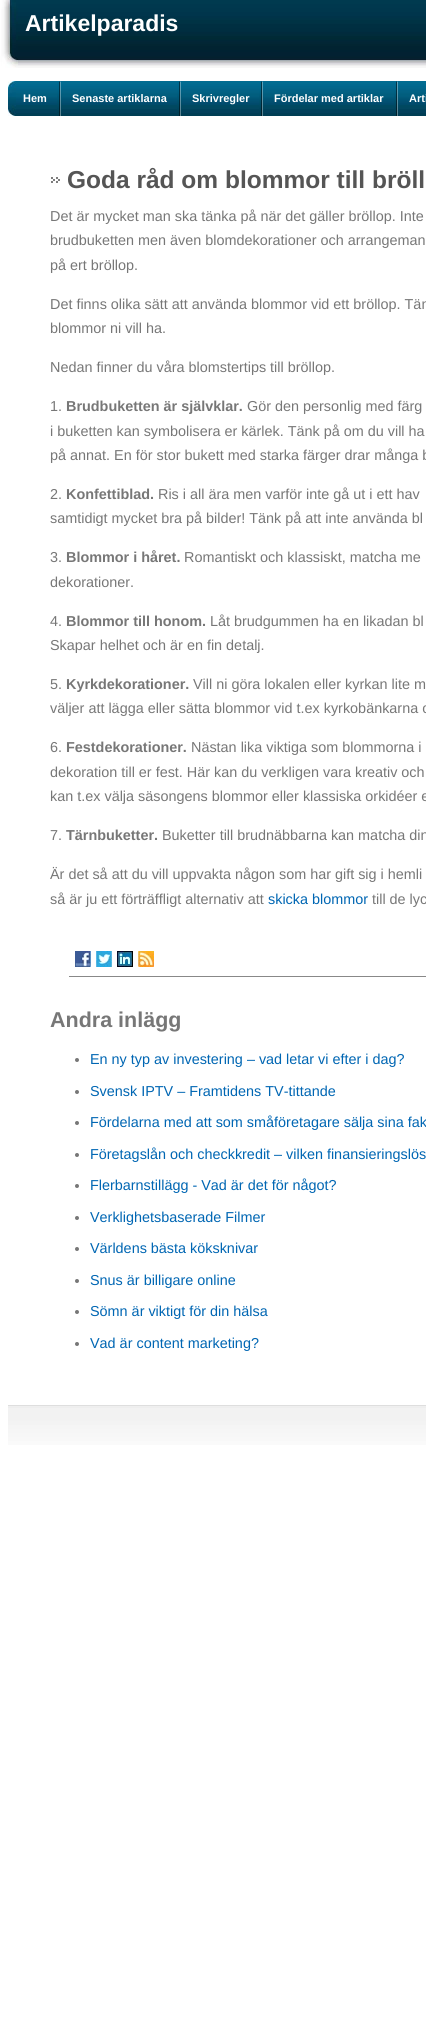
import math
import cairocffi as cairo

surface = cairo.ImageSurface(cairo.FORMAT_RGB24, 426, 2019)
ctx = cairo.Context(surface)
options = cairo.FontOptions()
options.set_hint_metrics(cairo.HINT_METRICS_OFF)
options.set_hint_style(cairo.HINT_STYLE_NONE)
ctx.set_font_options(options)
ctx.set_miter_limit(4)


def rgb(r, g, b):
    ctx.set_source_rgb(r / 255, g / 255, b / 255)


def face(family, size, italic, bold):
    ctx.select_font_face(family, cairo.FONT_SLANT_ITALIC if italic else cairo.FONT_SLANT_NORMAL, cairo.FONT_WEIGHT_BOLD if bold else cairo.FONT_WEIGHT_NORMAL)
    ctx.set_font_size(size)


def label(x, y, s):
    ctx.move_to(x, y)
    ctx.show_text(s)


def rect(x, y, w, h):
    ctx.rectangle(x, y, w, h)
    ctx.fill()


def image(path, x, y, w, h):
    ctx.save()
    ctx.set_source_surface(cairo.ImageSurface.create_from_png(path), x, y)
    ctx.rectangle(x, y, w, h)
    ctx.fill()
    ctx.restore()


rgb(255, 255, 255)
ctx.paint()
image('image0.png', 18, 0, 408, 68)
image('image1.png', 0, 0, 18, 68)
face('Liberation Sans', 23, 0, 1)
rgb(255, 255, 255)
label(25, 31, 'Artikelparadis')
image('image2.png', 16, 81, 410, 35)
image('image3.png', 8, 81, 8, 35)
image('image4.png', 57, 81, 5, 35)
face('Liberation Sans', 11, 0, 1)
label(23, 102, 'Hem')
image('image4.png', 177, 81, 5, 35)
label(72, 102, 'Senaste artiklarna')
image('image4.png', 259, 81, 5, 35)
label(192, 102, 'Skrivregler')
image('image4.png', 394, 81, 5, 35)
label(274, 102, 'Fördelar med artiklar')
label(409, 102, 'Arti')
image('image5.png', 51, 177, 9, 6)
face('Liberation Sans', 24.5, 0, 1)
rgb(85, 85, 85)
label(67, 188, 'Goda råd om blommor till bröll')
face('Liberation Sans', 14.4, 0, 0)
rgb(119, 119, 119)
label(50, 221, 'Det är mycket man ska tänka på när det gäller bröllop. Inte')
label(50, 245, 'brudbuketten men även blomdekorationer och arrangeman')
label(50, 270, 'på ert bröllop.')
label(50, 309, 'Det finns olika sätt att använda blommor vid ett bröllop. Tän')
label(50, 333, 'blommor ni vill ha.')
label(50, 372, 'Nedan finner du våra blomstertips till bröllop.')
label(50, 411, '1.')
face('Liberation Sans', 14.4, 0, 1)
label(66, 411, 'Brudbuketten är självklar.')
face('Liberation Sans', 14.4, 0, 0)
label(247, 411, 'Gör den personlig med färg')
label(50, 436, 'i buketten kan symbolisera er kärlek. Tänk på om du vill ha')
label(50, 460, 'på annat. En för stor bukett med starka färger drar många b')
label(50, 499, '2.')
face('Liberation Sans', 14.4, 0, 1)
label(66, 499, 'Konfettiblad.')
face('Liberation Sans', 14.4, 0, 0)
label(158, 499, 'Ris i all ära men varför inte gå ut i ett hav')
label(50, 523, 'samtidigt mycket bra på bilder! Tänk på att inte använda bl')
label(50, 562, '3.')
face('Liberation Sans', 14.4, 0, 1)
label(66, 562, 'Blommor i håret.')
face('Liberation Sans', 14.4, 0, 0)
label(184, 562, 'Romantiskt och klassiskt, matcha me')
label(50, 587, 'dekorationer.')
label(50, 626, '4.')
face('Liberation Sans', 14.4, 0, 1)
label(66, 626, 'Blommor till honom.')
face('Liberation Sans', 14.4, 0, 0)
label(210, 626, 'Låt brudgummen ha en likadan bl')
label(50, 650, 'Skapar helhet och är en fin detalj.')
label(50, 689, '5.')
face('Liberation Sans', 14.4, 0, 1)
label(66, 689, 'Kyrkdekorationer.')
face('Liberation Sans', 14.4, 0, 0)
label(193, 689, 'Vill ni göra lokalen eller kyrkan lite m')
label(50, 713, 'väljer att lägga eller sätta blommor vid t.ex kyrkobänkarna o')
label(50, 752, '6.')
face('Liberation Sans', 14.4, 0, 1)
label(66, 752, 'Festdekorationer.')
face('Liberation Sans', 14.4, 0, 0)
label(191, 752, 'Nästan lika viktiga som blommorna i')
label(50, 777, 'dekoration till er fest. Här kan du verkligen vara kreativ och')
label(50, 801, 'kan t.ex välja säsongens blommor eller klassiska orkidéer e')
label(50, 840, '7.')
face('Liberation Sans', 14.4, 0, 1)
label(66, 840, 'Tärnbuketter.')
face('Liberation Sans', 14.4, 0, 0)
label(162, 840, 'Buketter till brudnäbbarna kan matcha din')
label(50, 879, 'Är det så att du vill uppvakta någon som har gift sig i hemli')
label(50, 904, 'så är ju ett förträffligt alternativ att')
rgb(0, 102, 179)
label(268, 904, 'skicka blommor')
rgb(119, 119, 119)
label(372, 904, 'till de lyc')
image('image6.png', 75, 951, 16, 16)
image('image7.png', 96, 951, 16, 16)
image('image8.png', 117, 951, 16, 16)
image('image9.png', 138, 951, 16, 16)
rgb(136, 136, 136)
rect(69, 976, 357, 1)
face('Liberation Sans', 21.5, 0, 1)
rgb(119, 119, 119)
label(50, 1027, 'Andra inlägg')
ctx.new_path()
ctx.arc(77, 1060, 2, 0, 2 * math.pi)
ctx.fill()
face('Liberation Sans', 14.4, 0, 0)
rgb(0, 102, 179)
label(90, 1064, 'En ny typ av investering – vad letar vi efter i dag?')
rgb(119, 119, 119)
ctx.new_path()
ctx.arc(77, 1092, 2, 0, 2 * math.pi)
ctx.fill()
rgb(0, 102, 179)
label(90, 1096, 'Svensk IPTV – Framtidens TV-tittande')
rgb(119, 119, 119)
ctx.new_path()
ctx.arc(77, 1123, 2, 0, 2 * math.pi)
ctx.fill()
rgb(0, 102, 179)
label(90, 1127, 'Fördelarna med att som småföretagare sälja sina fak')
rgb(119, 119, 119)
ctx.new_path()
ctx.arc(77, 1155, 2, 0, 2 * math.pi)
ctx.fill()
rgb(0, 102, 179)
label(90, 1159, 'Företagslån och checkkredit – vilken finansieringslös')
rgb(119, 119, 119)
ctx.new_path()
ctx.arc(77, 1186, 2, 0, 2 * math.pi)
ctx.fill()
rgb(0, 102, 179)
label(90, 1190, 'Flerbarnstillägg - Vad är det för något?')
rgb(119, 119, 119)
ctx.new_path()
ctx.arc(77, 1218, 2, 0, 2 * math.pi)
ctx.fill()
rgb(0, 102, 179)
label(90, 1222, 'Verklighetsbaserade Filmer')
rgb(119, 119, 119)
ctx.new_path()
ctx.arc(77, 1249, 2, 0, 2 * math.pi)
ctx.fill()
rgb(0, 102, 179)
label(90, 1253, 'Världens bästa köksknivar')
rgb(119, 119, 119)
ctx.new_path()
ctx.arc(77, 1281, 2, 0, 2 * math.pi)
ctx.fill()
rgb(0, 102, 179)
label(90, 1285, 'Snus är billigare online')
rgb(119, 119, 119)
ctx.new_path()
ctx.arc(77, 1312, 2, 0, 2 * math.pi)
ctx.fill()
rgb(0, 102, 179)
label(90, 1316, 'Sömn är viktigt för din hälsa')
rgb(119, 119, 119)
ctx.new_path()
ctx.arc(77, 1344, 2, 0, 2 * math.pi)
ctx.fill()
rgb(0, 102, 179)
label(90, 1348, 'Vad är content marketing?')
image('image10.png', 8, 1405, 418, 40)
surface.write_to_png('render.png')
